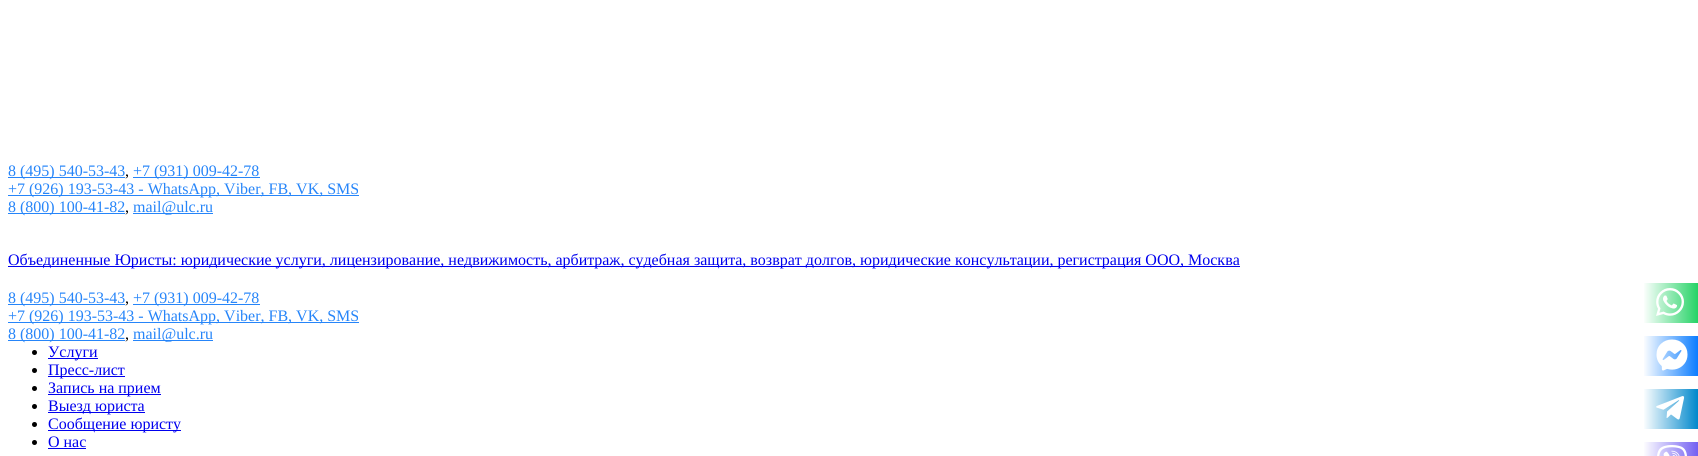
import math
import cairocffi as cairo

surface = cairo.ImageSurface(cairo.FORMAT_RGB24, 1698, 456)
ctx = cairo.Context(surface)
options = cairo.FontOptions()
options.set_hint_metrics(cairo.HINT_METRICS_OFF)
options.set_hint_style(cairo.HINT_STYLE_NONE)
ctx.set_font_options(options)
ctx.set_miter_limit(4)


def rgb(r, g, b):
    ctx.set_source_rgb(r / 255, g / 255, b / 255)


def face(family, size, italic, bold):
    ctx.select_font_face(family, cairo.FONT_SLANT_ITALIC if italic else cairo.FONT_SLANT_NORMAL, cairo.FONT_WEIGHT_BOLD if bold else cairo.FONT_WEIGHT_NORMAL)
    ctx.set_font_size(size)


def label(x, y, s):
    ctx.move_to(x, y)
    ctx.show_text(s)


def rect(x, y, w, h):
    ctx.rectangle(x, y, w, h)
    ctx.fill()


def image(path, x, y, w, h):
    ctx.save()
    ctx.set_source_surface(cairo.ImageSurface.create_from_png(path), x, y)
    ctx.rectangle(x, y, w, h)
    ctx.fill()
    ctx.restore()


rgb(255, 255, 255)
ctx.paint()
rgb(38, 133, 249)
rect(8, 177, 117, 1)
face('Liberation Serif', 16, 0, 0)
label(8, 176, '8 (495) 540-53-43')
rgb(0, 0, 0)
label(125, 176, ',')
rgb(38, 133, 249)
rect(133, 177, 127, 1)
label(133, 176, '+7 (931) 009-42-78')
rect(8, 195, 351, 1)
label(8, 194, '+7 (926) 193-53-43 - WhatsApp, Viber, FB, VK, SMS')
rect(8, 213, 117, 1)
label(8, 212, '8 (800) 100-41-82')
rgb(0, 0, 0)
label(125, 212, ',')
rgb(38, 133, 249)
rect(133, 213, 80, 1)
label(133, 212, 'mail@ulc.ru')
rgb(0, 0, 238)
rect(8, 266, 1232, 1)
label(8, 265, 'Объединенные Юристы: юридические услуги, лицензирование, недвижимость, арбитраж, судебная защита, возврат долгов, юридические консультации, регистрация ООО, Москва')
rgb(38, 133, 249)
rect(8, 304, 117, 1)
label(8, 303, '8 (495) 540-53-43')
rgb(0, 0, 0)
label(125, 303, ',')
rgb(38, 133, 249)
rect(133, 304, 127, 1)
label(133, 303, '+7 (931) 009-42-78')
rect(8, 322, 351, 1)
label(8, 321, '+7 (926) 193-53-43 - WhatsApp, Viber, FB, VK, SMS')
rect(8, 340, 117, 1)
label(8, 339, '8 (800) 100-41-82')
rgb(0, 0, 0)
label(125, 339, ',')
rgb(38, 133, 249)
rect(133, 340, 80, 1)
label(133, 339, 'mail@ulc.ru')
rgb(0, 0, 0)
ctx.new_path()
ctx.arc(34.5, 352.5, 2.5, 0, 2 * math.pi)
ctx.fill()
rgb(0, 0, 238)
rect(48, 358, 50, 1)
label(48, 357, 'Услуги')
rgb(0, 0, 0)
ctx.new_path()
ctx.arc(34.5, 370.5, 2.5, 0, 2 * math.pi)
ctx.fill()
rgb(0, 0, 238)
rect(48, 376, 77, 1)
label(48, 375, 'Пресс-лист')
rgb(0, 0, 0)
ctx.new_path()
ctx.arc(34.5, 388.5, 2.5, 0, 2 * math.pi)
ctx.fill()
rgb(0, 0, 238)
rect(48, 394, 113, 1)
label(48, 393, 'Запись на прием')
rgb(0, 0, 0)
ctx.new_path()
ctx.arc(34.5, 406.5, 2.5, 0, 2 * math.pi)
ctx.fill()
rgb(0, 0, 238)
rect(48, 412, 97, 1)
label(48, 411, 'Выезд юриста')
rgb(0, 0, 0)
ctx.new_path()
ctx.arc(34.5, 424.5, 2.5, 0, 2 * math.pi)
ctx.fill()
rgb(0, 0, 238)
rect(48, 430, 133, 1)
label(48, 429, 'Сообщение юристу')
rgb(0, 0, 0)
ctx.new_path()
ctx.arc(34.5, 442.5, 2.5, 0, 2 * math.pi)
ctx.fill()
rgb(0, 0, 238)
label(48, 447, 'О нас')
rect(48, 448, 38, 1)
gradient = cairo.LinearGradient(1643, 303, 1698, 303)
gradient.add_color_stop_rgba(0, 1, 1, 1, 1)
gradient.add_color_stop_rgba(1, 0.145, 0.827, 0.4, 1)
ctx.set_source(gradient)
rect(1644, 283, 54, 40)
image('image0.png', 1656, 288, 28, 28)
gradient = cairo.LinearGradient(1643, 356, 1698, 356)
gradient.add_color_stop_rgba(0, 1, 1, 1, 1)
gradient.add_color_stop_rgba(1, 0.039, 0.486, 1, 1)
ctx.set_source(gradient)
rect(1644, 336, 54, 40)
image('image1.png', 1656, 339, 32, 32)
gradient = cairo.LinearGradient(1643, 409, 1698, 409)
gradient.add_color_stop_rgba(0, 1, 1, 1, 1)
gradient.add_color_stop_rgba(1, 0, 0.533, 0.8, 1)
ctx.set_source(gradient)
rect(1644, 389, 54, 40)
image('image2.png', 1656, 396, 29, 24)
gradient = cairo.LinearGradient(1643, 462, 1698, 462)
gradient.add_color_stop_rgba(0, 1, 1, 1, 1)
gradient.add_color_stop_rgba(1, 0.451, 0.376, 0.949, 1)
ctx.set_source(gradient)
rect(1644, 442, 54, 14)
image('image3.png', 1657, 445, 30, 11)
surface.write_to_png('render.png')
